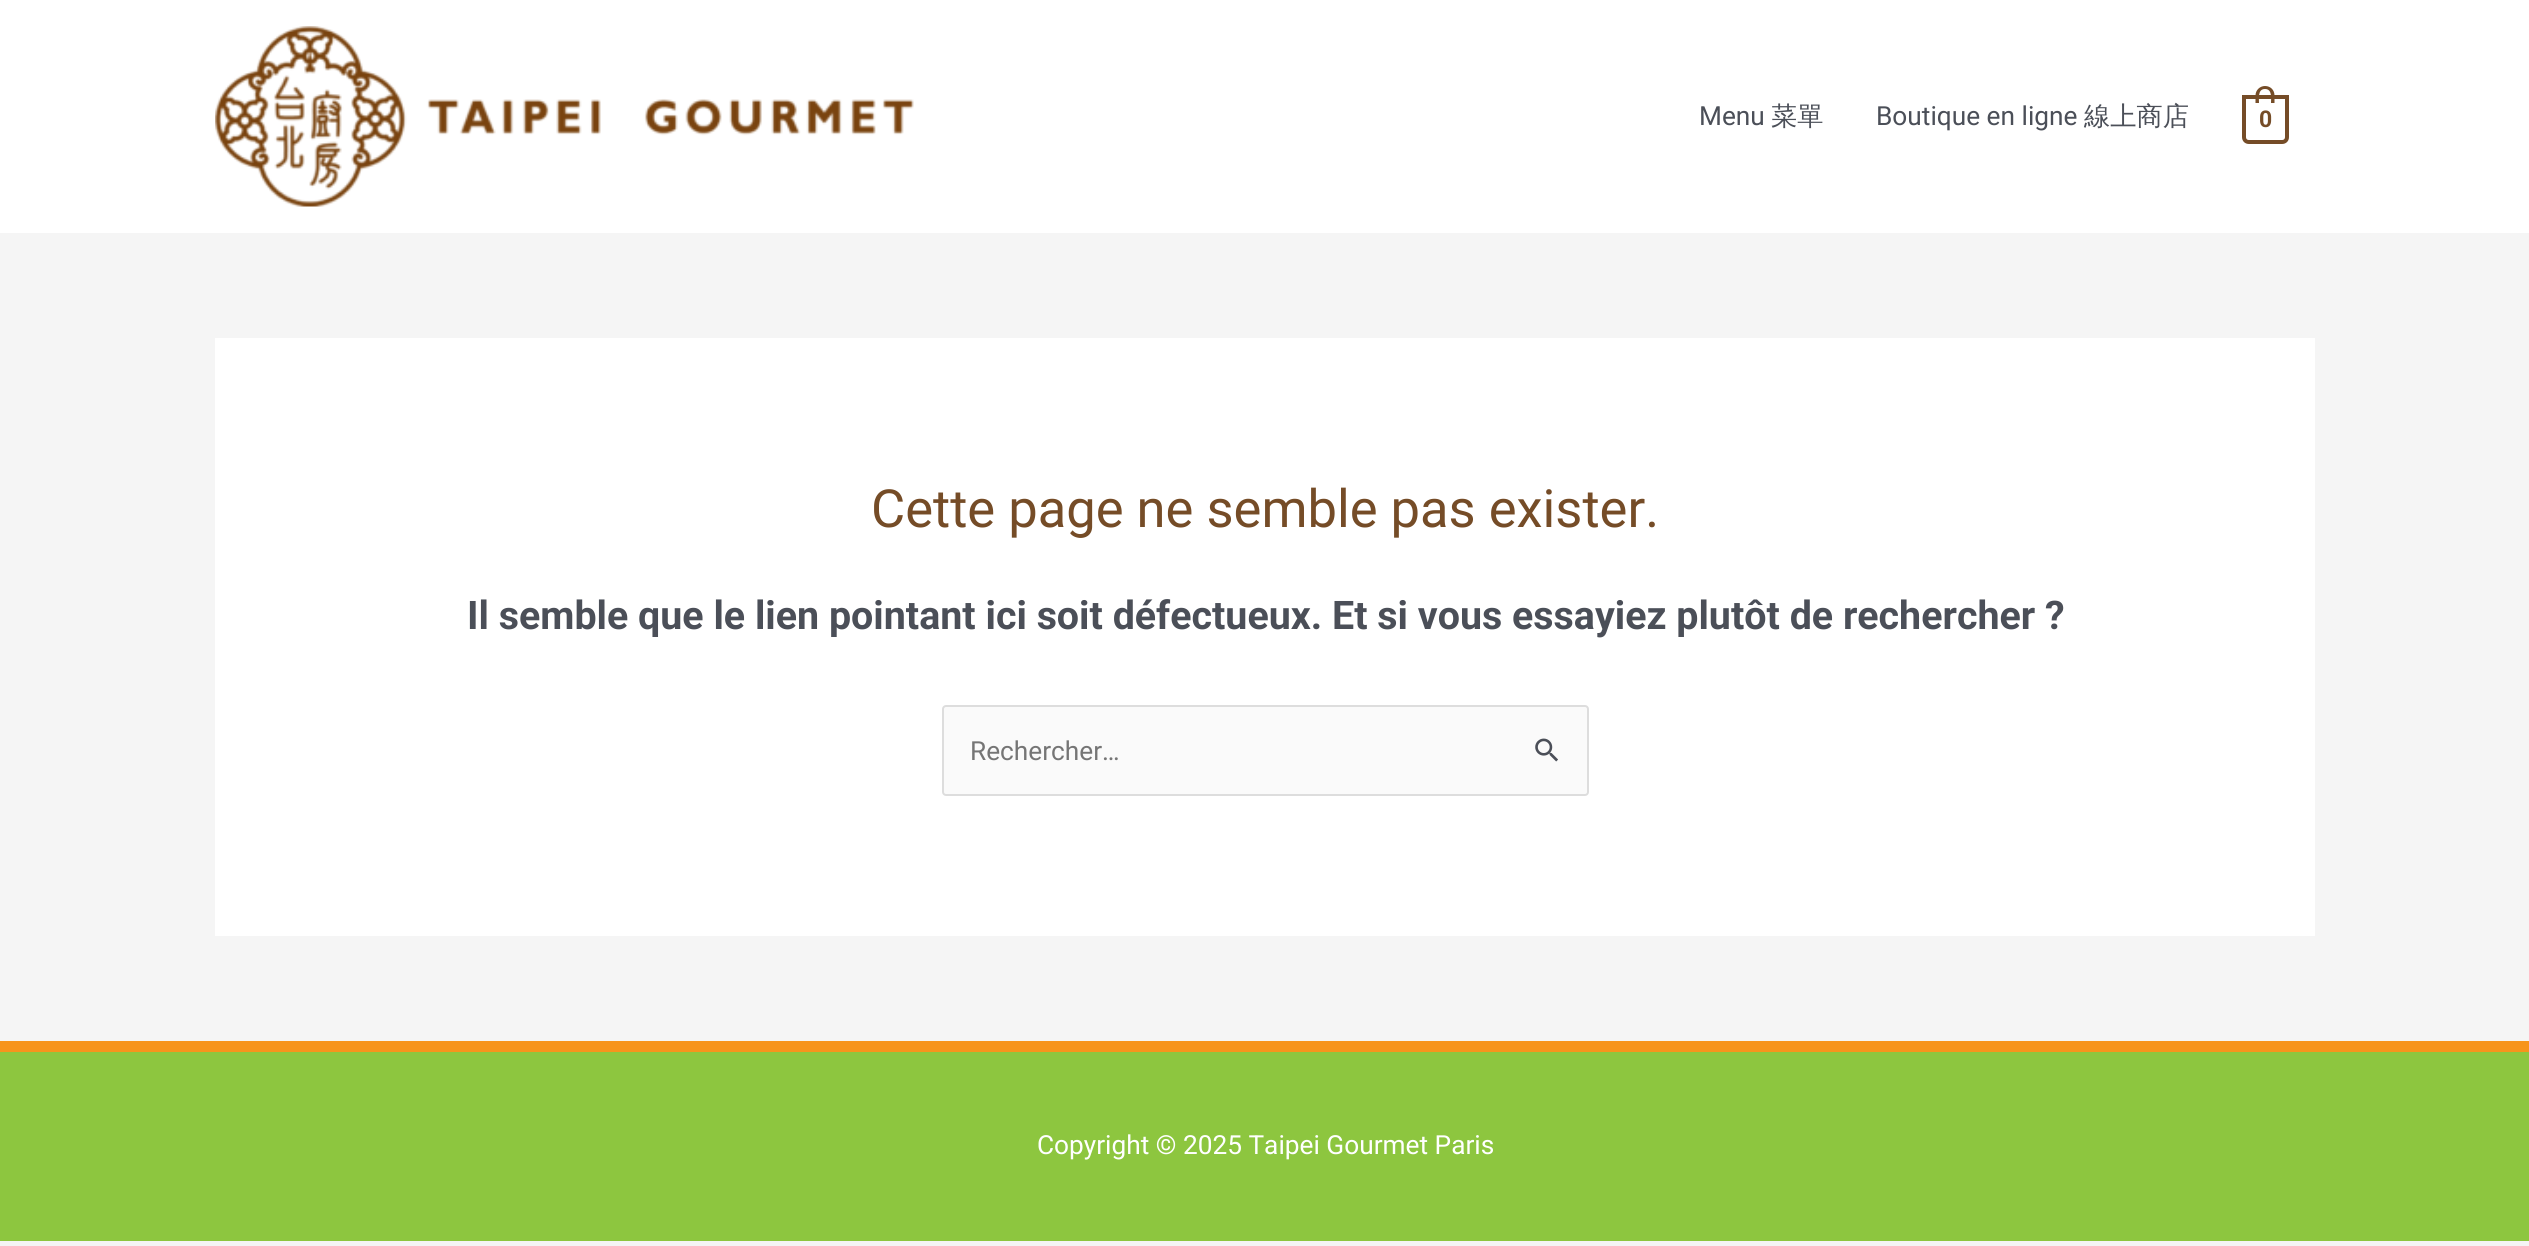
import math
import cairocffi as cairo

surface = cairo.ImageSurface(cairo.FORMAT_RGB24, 2529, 1246)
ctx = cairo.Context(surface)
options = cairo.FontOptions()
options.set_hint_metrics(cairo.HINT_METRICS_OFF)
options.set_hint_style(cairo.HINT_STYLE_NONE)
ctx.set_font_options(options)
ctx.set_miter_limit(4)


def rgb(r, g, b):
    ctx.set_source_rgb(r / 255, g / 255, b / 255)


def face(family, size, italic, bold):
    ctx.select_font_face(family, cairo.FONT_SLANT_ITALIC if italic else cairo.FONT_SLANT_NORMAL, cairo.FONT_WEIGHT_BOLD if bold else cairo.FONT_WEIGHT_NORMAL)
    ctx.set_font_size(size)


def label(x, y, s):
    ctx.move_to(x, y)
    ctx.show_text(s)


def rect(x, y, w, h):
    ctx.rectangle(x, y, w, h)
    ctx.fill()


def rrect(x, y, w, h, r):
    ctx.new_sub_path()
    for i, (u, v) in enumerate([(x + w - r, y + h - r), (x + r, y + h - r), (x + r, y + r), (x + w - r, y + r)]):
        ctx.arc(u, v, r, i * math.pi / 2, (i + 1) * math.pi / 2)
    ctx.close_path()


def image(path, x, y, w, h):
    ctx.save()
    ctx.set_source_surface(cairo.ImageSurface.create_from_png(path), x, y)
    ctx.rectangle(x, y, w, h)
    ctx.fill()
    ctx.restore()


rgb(245, 245, 245)
ctx.paint()
rgb(255, 255, 255)
rect(0, 0, 2529, 233)
image('image0.png', 215, 26, 699, 181)
face('Roboto', 26.25, 0, 0)
rgb(75, 79, 88)
label(1699, 125, 'Menu')
face('WenQuanYi Zen Hei Medium', 26.25, 0, 0)
label(1771, 125, '菜單')
face('Roboto', 26.25, 0, 0)
label(1876, 125, 'Boutique en ligne')
face('WenQuanYi Zen Hei Medium', 26.25, 0, 0)
label(2084, 125, '線上商店')
ctx.new_path()
ctx.move_to(2244, 97)
ctx.line_to(2287, 97)
ctx.line_to(2287, 137)
ctx.curve_to(2287, 140, 2285, 142, 2282, 142)
ctx.line_to(2249, 142)
ctx.curve_to(2246, 142, 2244, 140, 2244, 137)
ctx.close_path()
rgb(117, 76, 39)
ctx.set_line_width(4)
ctx.stroke()
ctx.set_fill_rule(cairo.FILL_RULE_EVEN_ODD)
ctx.new_path()
ctx.move_to(2265, 86)
ctx.curve_to(2270.5, 86, 2274.5, 90, 2274.5, 95.5)
ctx.line_to(2274.5, 103)
ctx.line_to(2255.5, 103)
ctx.line_to(2255.5, 95.5)
ctx.curve_to(2255.5, 90, 2260, 86, 2265, 86)
ctx.close_path()
ctx.move_to(2265, 89)
ctx.curve_to(2272.5, 89, 2271, 98.5, 2271, 103)
ctx.line_to(2259, 103)
ctx.curve_to(2259, 98.5, 2257.5, 89, 2265, 89)
ctx.close_path()
ctx.fill()
face('Roboto', 23, 0, 1)
label(2259, 127, '0')
rgb(255, 255, 255)
rect(215, 338, 2100, 598)
face('Roboto', 52.5, 0, 0)
rgb(117, 76, 39)
label(871, 527, 'Cette page ne semble pas exister.')
face('Roboto', 39.4, 0, 1)
rgb(75, 79, 88)
label(467, 629, 'Il semble que le lien pointant ici soit défectueux. Et si vous essayiez plutôt de rechercher ?')
rgb(250, 250, 250)
rrect(943, 706, 645, 89, 3)
ctx.fill_preserve()
rgb(221, 221, 221)
ctx.set_line_width(2)
ctx.stroke()
face('Roboto', 26.25, 0, 0)
rgb(117, 117, 117)
label(970, 760, 'Rechercher…')
image('image1.png', 1535, 738, 23, 24)
rgb(247, 148, 28)
rect(0, 1041, 2529, 11)
rgb(141, 198, 63)
rect(0, 1052, 2529, 189)
rgb(255, 255, 255)
label(1037, 1154, 'Copyright © 2025 Taipei Gourmet Paris')
surface.write_to_png('render.png')
